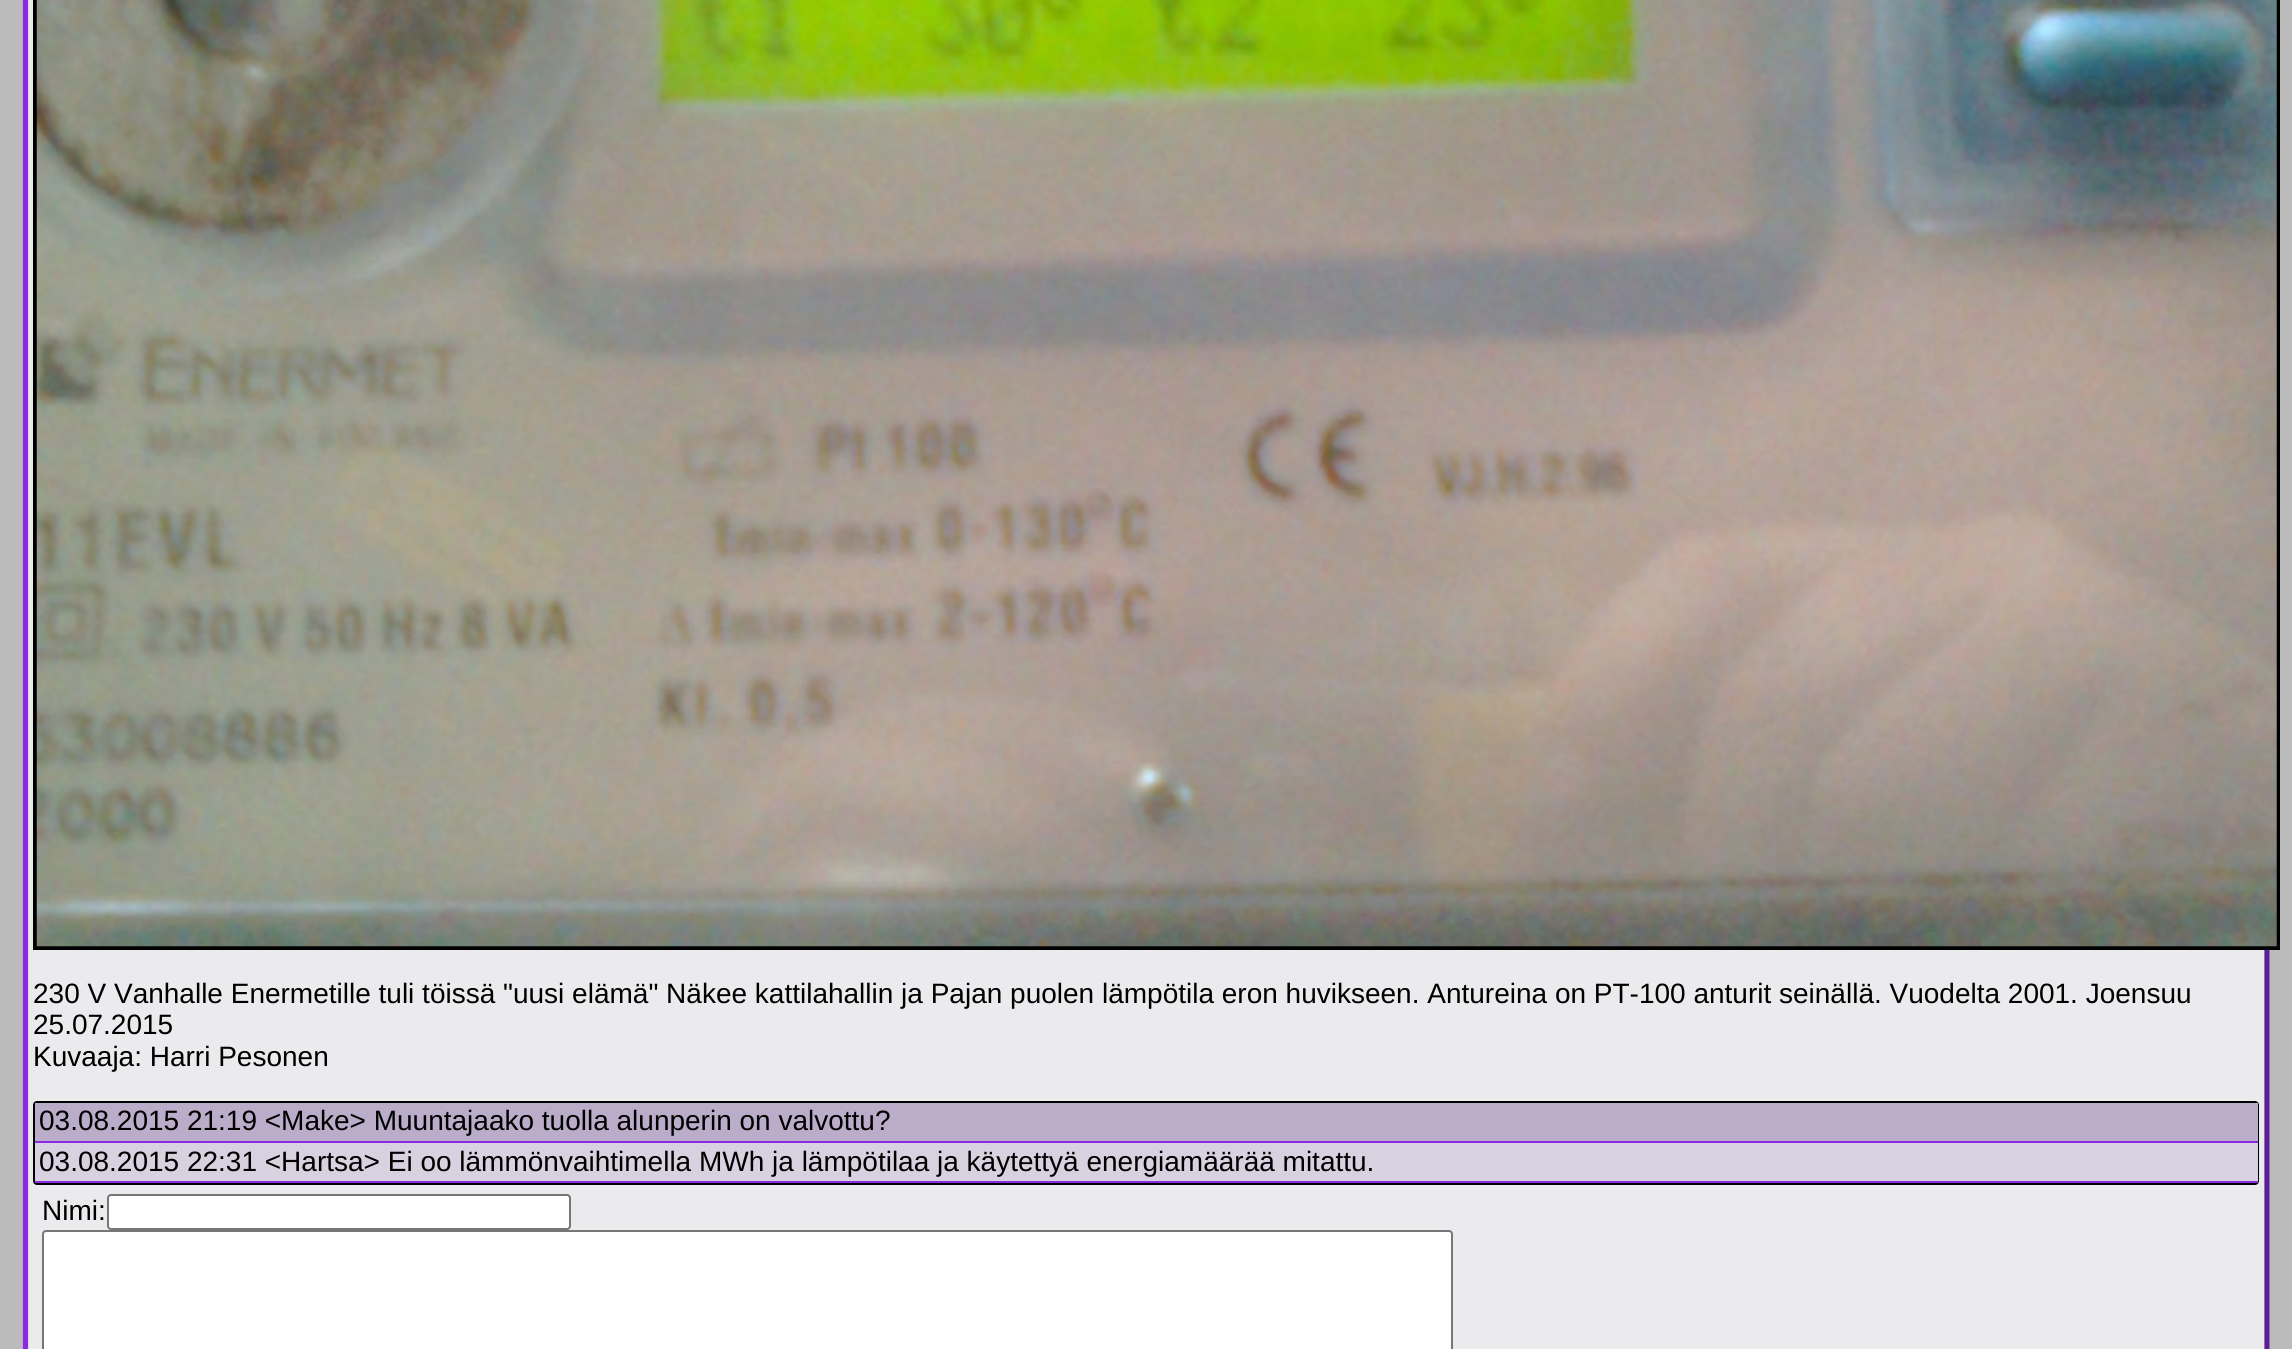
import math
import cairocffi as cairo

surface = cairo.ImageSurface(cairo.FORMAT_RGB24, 2292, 1349)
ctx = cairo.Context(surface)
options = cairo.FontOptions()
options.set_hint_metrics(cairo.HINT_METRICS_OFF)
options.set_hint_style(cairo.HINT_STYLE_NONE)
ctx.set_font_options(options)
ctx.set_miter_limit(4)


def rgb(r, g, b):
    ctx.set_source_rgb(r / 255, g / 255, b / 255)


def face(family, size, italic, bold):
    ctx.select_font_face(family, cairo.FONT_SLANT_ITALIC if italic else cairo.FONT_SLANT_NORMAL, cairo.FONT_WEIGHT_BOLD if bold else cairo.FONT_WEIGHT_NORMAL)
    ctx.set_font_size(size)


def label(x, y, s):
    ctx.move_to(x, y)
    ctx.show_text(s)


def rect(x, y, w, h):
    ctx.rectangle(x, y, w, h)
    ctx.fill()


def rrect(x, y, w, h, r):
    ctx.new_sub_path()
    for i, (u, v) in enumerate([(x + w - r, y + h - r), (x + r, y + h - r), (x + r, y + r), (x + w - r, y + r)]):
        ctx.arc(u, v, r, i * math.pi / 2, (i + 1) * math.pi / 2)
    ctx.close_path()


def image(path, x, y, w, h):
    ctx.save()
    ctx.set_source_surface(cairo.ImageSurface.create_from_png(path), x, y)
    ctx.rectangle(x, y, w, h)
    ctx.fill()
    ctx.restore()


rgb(187, 187, 187)
ctx.paint()
rgb(235, 234, 237)
rect(28, 0, 2242, 1349)
ctx.new_path()
ctx.move_to(2260, -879.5)
ctx.curve_to(2264.5, -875, 2267, -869, 2267, -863)
ctx.line_to(2267, 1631)
ctx.curve_to(2267, 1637.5, 2264.5, 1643.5, 2260, 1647.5)
ctx.curve_to(2256, 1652, 2250, 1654.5, 2243.5, 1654.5)
ctx.line_to(49, 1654.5)
ctx.curve_to(42.5, 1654.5, 36.5, 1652, 32.5, 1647.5)
rgb(92, 29, 151)
ctx.set_line_width(5.2)
ctx.stroke()
ctx.new_path()
ctx.move_to(32.5, 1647.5)
ctx.curve_to(28, 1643.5, 25.5, 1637.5, 25.5, 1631)
ctx.line_to(25.5, -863)
ctx.curve_to(25.5, -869, 28, -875, 32.5, -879.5)
ctx.curve_to(36.5, -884, 42.5, -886.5, 49, -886.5)
ctx.line_to(2243.5, -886.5)
ctx.curve_to(2250, -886.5, 2256, -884, 2260, -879.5)
rgb(138, 43, 226)
ctx.stroke()
ctx.rectangle(35, -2, 2243, 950)
rgb(0, 0, 0)
ctx.set_line_width(4)
ctx.stroke()
image('image0.png', 36, 0, 2241, 947)
face('Liberation Sans', 28, 0, 0)
label(33, 1003, '230 V Vanhalle Enermetille tuli töissä "uusi elämä" Näkee kattilahallin ja Pajan puolen lämpötila eron huvikseen. Antureina on PT-100 anturit seinällä. Vuodelta 2001. Joensuu')
label(33, 1034, '25.07.2015')
label(33, 1066, 'Kuvaaja: Harri Pesonen')
rrect(34, 1102, 2224, 82, 3)
ctx.set_line_width(2)
ctx.stroke()
rgb(187, 173, 201)
rect(35, 1103, 2223, 38)
rgb(138, 43, 226)
rect(35, 1141, 2223, 2)
rgb(0, 0, 0)
label(39, 1130, '03.08.2015 21:19 <Make> Muuntajaako tuolla alunperin on valvottu?')
rgb(216, 209, 223)
rect(35, 1143, 2223, 38)
rgb(138, 43, 226)
rect(35, 1181, 2223, 2)
rgb(0, 0, 0)
label(39, 1171, '03.08.2015 22:31 <Hartsa> Ei oo lämmönvaihtimella MWh ja lämpötilaa ja käytettyä energiamäärää mitattu.')
label(42, 1220, 'Nimi:')
rgb(255, 255, 255)
rrect(108, 1195, 462, 34, 3)
ctx.fill_preserve()
rgb(118, 118, 118)
ctx.stroke()
rgb(255, 255, 255)
rrect(43, 1231, 1409, 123, 3)
ctx.fill_preserve()
rgb(118, 118, 118)
ctx.stroke()
surface.write_to_png('render.png')
